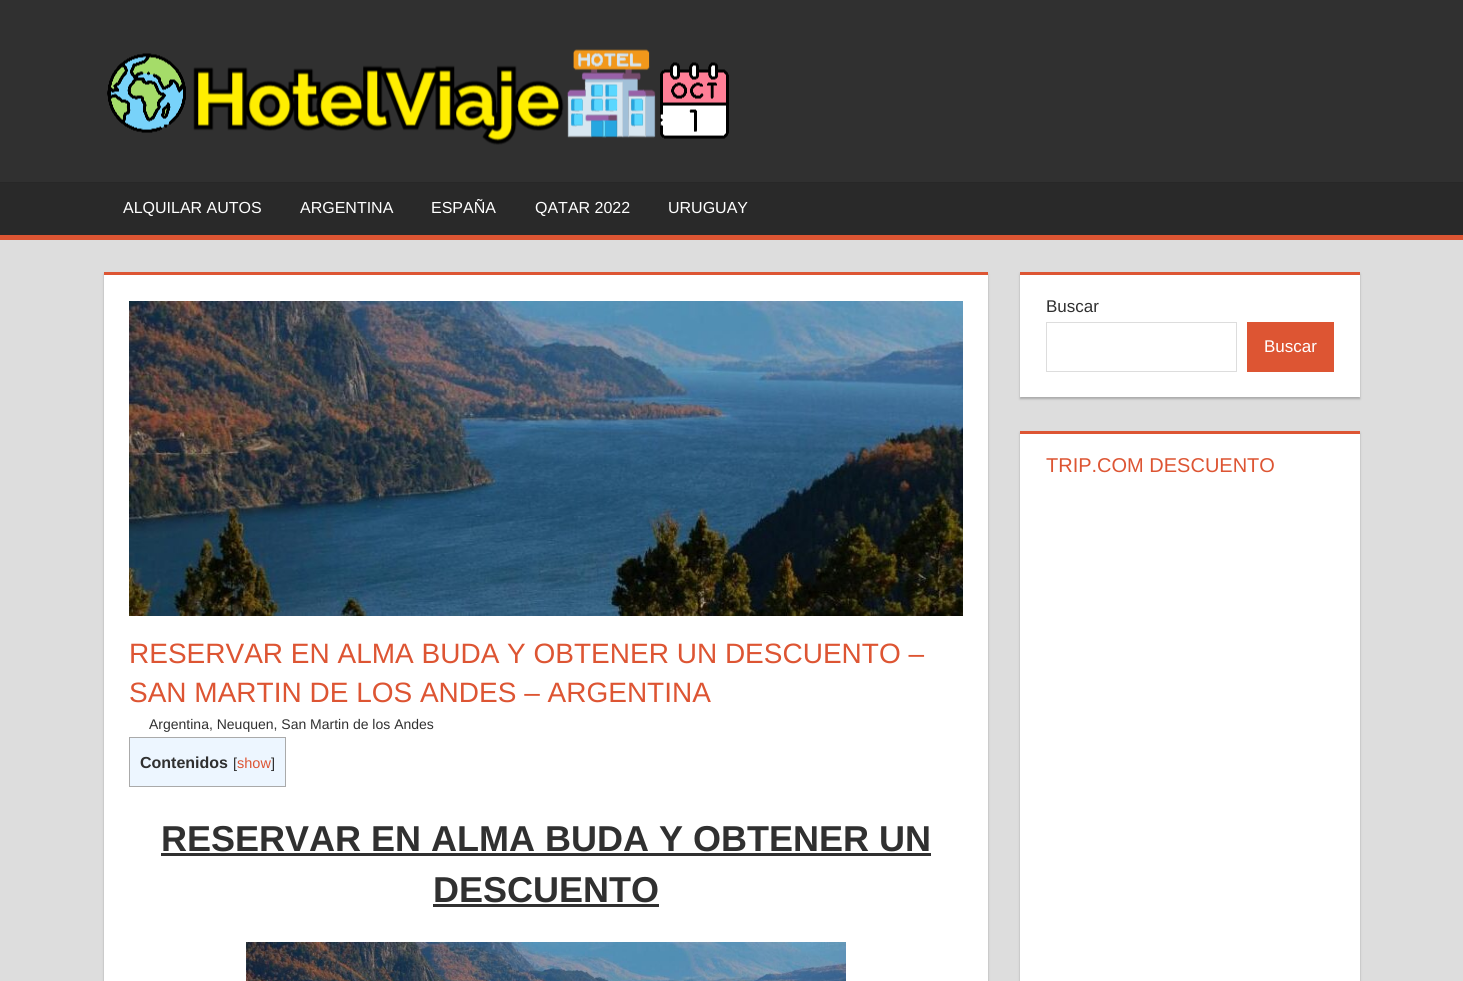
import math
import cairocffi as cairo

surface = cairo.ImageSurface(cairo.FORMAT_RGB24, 1463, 981)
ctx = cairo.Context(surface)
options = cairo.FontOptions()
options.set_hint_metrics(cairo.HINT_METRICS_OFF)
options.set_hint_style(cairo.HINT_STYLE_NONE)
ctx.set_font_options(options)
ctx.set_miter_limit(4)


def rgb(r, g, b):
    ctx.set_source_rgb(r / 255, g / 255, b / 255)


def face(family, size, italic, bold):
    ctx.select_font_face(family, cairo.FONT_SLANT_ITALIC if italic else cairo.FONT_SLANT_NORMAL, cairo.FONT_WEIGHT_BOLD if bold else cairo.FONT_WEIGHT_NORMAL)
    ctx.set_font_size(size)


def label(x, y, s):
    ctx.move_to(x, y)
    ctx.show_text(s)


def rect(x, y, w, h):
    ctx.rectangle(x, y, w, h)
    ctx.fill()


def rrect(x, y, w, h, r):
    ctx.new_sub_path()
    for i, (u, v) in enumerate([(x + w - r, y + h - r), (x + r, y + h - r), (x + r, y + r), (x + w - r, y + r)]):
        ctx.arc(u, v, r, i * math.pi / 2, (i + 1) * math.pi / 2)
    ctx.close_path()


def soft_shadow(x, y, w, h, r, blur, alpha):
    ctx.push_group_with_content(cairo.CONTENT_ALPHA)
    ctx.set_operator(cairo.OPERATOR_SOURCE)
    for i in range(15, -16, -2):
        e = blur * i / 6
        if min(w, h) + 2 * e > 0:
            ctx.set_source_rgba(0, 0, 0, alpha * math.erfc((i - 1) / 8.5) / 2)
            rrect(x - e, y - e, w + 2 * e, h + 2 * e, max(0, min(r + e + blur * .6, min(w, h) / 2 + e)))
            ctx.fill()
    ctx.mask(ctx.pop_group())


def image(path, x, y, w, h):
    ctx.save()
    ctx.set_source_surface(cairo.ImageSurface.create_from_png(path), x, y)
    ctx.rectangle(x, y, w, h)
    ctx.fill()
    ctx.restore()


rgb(221, 221, 221)
ctx.paint()
rgb(48, 48, 48)
rect(0, 0, 1463, 182)
image('image0.png', 107, 49, 622, 96)
rgb(41, 41, 41)
rect(0, 183, 1463, 52)
rgb(39, 39, 39)
rect(0, 182, 1463, 1)
rgb(221, 85, 51)
rect(0, 235, 1463, 5)
face('Liberation Sans', 16, 0, 0)
rgb(255, 255, 255)
label(123, 213, 'ALQUILAR AUTOS')
label(300, 213, 'ARGENTINA')
label(431, 213, 'ESPAÑA')
label(535, 213, 'QATAR 2022')
label(668, 213, 'URUGUAY')
rgb(170, 170, 170)
soft_shadow(1020, 274, 340, 125, 0, 1, 1)
rgb(255, 255, 255)
rect(1020, 275, 340, 122)
rgb(221, 85, 51)
rect(1020, 272, 340, 3)
face('Liberation Sans', 17, 0, 0)
rgb(48, 48, 48)
label(1046, 312, 'Buscar')
ctx.rectangle(1046.5, 322.5, 190, 49)
rgb(221, 221, 221)
ctx.set_line_width(1)
ctx.stroke()
rgb(221, 85, 51)
rect(1247, 322, 87, 50)
rgb(255, 255, 255)
label(1264, 352, 'Buscar')
rgb(170, 170, 170)
soft_shadow(1020, 433, 340, 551, 0, 1, 1)
rgb(255, 255, 255)
rect(1020, 434, 340, 547)
rgb(221, 85, 51)
rect(1020, 431, 340, 3)
face('Liberation Sans', 20, 0, 0)
label(1046, 472, 'TRIP.COM DESCUENTO')
rgb(170, 170, 170)
soft_shadow(104, 274, 884, 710, 0, 1, 1)
rgb(255, 255, 255)
rect(104, 275, 884, 706)
rgb(221, 85, 51)
rect(104, 272, 884, 3)
image('image1.png', 129, 301, 834, 315)
face('Liberation Sans', 28, 0, 0)
label(129, 663, 'RESERVAR EN ALMA BUDA Y OBTENER UN DESCUENTO –')
label(129, 702, 'SAN MARTIN DE LOS ANDES – ARGENTINA')
face('Liberation Sans', 14, 0, 0)
rgb(48, 48, 48)
label(149, 729, 'Argentina, Neuquen, San Martin de los Andes')
rgb(237, 246, 255)
ctx.rectangle(129.5, 737.5, 156, 49)
ctx.fill_preserve()
rgb(170, 170, 170)
ctx.stroke()
face('Liberation Sans', 16, 0, 1)
rgb(48, 48, 48)
label(140, 768, 'Contenidos')
face('Liberation Sans', 14.5, 0, 0)
label(233, 768, '[')
rgb(221, 85, 51)
label(237, 768, 'show')
rgb(48, 48, 48)
label(271, 768, ']')
face('Liberation Sans', 36, 0, 1)
label(161, 851, 'RESERVAR EN ALMA BUDA Y OBTENER UN')
rect(161, 853, 770, 3)
label(433, 902, 'DESCUENTO')
rect(433, 904, 226, 3)
image('image2.png', 246, 942, 600, 39)
surface.write_to_png('render.png')
